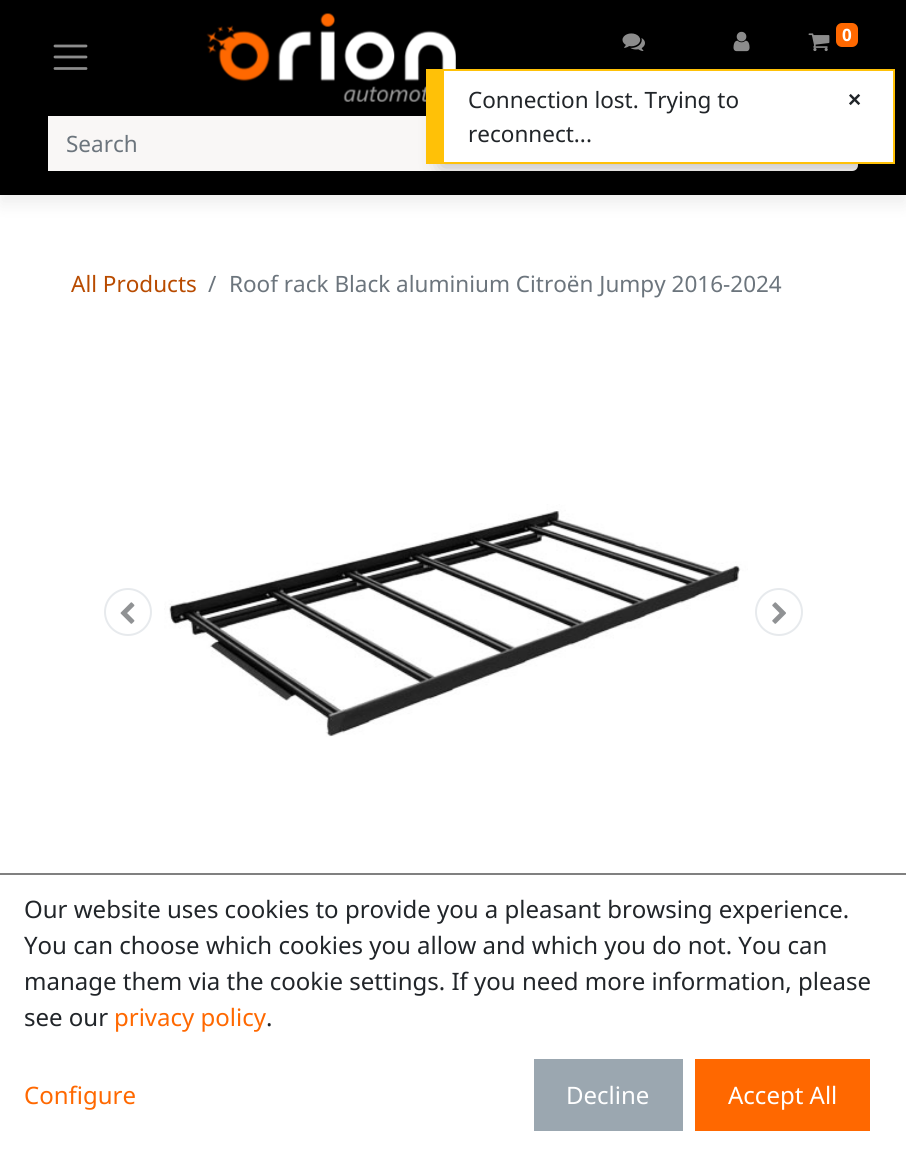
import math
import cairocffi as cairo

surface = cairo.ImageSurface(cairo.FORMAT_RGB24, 906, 1155)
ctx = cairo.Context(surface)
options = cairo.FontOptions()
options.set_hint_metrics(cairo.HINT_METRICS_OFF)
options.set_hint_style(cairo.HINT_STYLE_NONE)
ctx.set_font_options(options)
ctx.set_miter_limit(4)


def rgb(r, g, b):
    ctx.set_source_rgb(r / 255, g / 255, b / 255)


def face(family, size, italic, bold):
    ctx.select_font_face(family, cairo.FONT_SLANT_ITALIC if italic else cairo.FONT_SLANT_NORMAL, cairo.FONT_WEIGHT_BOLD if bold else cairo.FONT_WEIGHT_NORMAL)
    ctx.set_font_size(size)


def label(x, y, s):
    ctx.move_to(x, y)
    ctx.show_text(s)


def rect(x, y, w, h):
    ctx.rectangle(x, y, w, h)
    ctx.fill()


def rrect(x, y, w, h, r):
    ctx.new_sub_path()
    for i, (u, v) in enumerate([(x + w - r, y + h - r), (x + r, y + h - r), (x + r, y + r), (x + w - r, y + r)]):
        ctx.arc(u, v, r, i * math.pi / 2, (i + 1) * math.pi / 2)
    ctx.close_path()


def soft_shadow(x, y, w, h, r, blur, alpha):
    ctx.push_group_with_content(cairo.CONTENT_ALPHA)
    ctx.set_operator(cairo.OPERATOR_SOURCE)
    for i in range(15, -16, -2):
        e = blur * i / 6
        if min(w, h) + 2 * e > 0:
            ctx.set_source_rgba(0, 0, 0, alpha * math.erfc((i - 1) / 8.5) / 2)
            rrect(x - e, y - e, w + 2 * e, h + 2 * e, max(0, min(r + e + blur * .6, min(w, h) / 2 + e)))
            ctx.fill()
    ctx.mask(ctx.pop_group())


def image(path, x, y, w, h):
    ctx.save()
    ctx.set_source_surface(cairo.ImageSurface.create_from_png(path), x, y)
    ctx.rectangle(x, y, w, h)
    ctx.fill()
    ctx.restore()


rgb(255, 255, 255)
ctx.paint()
rgb(0, 0, 0)
soft_shadow(0, 9, 906, 195, 0, 9, 0.07)
rgb(0, 0, 0)
rect(0, 0, 906, 195)
image('image0.png', 206, 13, 250, 89)
image('image1.png', 622, 33, 23, 18)
image('image2.png', 733, 31, 17, 21)
image('image3.png', 808, 33, 22, 19)
rgb(255, 104, 0)
rrect(836, 23, 22, 24, 6)
ctx.fill()
face('Noto Sans', 17, 0, 1)
rgb(255, 255, 255)
label(842, 41, '0')
ctx.new_path()
ctx.move_to(55, 46)
ctx.line_to(86, 46)
ctx.move_to(55, 57)
ctx.line_to(86, 57)
ctx.move_to(55, 68.5)
ctx.line_to(86, 68.5)
rgb(140, 140, 140)
ctx.set_line_width(2.8)
ctx.set_line_cap(cairo.LINE_CAP_ROUND)
ctx.stroke()
rgb(249, 247, 246)
rect(48, 116, 725, 55)
face('Noto Sans', 22.5, 0, 0)
rgb(108, 117, 125)
label(66, 152, 'Search')
rgb(249, 247, 246)
ctx.new_path()
ctx.move_to(774, 117)
ctx.line_to(852, 117)
ctx.curve_to(855, 117, 857, 119, 857, 122)
ctx.line_to(857, 165)
ctx.curve_to(857, 168, 855, 170, 852, 170)
ctx.line_to(774, 170)
ctx.close_path()
ctx.fill_preserve()
ctx.set_line_width(2)
ctx.set_line_cap(cairo.LINE_CAP_BUTT)
ctx.stroke()
rgb(184, 75, 0)
label(71, 292, 'All Products')
rgb(108, 117, 125)
label(208, 292, '/')
label(229, 292, 'Roof rack Black aluminium Citroën Jumpy 2016-2024')
ctx.new_path()
ctx.arc(128, 612, 23, 0, 2 * math.pi)
rgb(231, 234, 237)
ctx.stroke()
image('image4.png', 120, 602, 15, 22)
image('image5.png', 164, 504, 584, 233)
ctx.arc(779, 612, 23, 0, 2 * math.pi)
ctx.stroke()
image('image6.png', 772, 602, 14, 22)
rgb(0, 0, 0)
soft_shadow(441, 102, 438, 65, 0, 10.5, 0.25)
rgb(255, 255, 255)
rect(444, 71, 449, 91)
rgb(255, 193, 7)
rect(444, 69, 450, 2)
rect(893, 69, 2, 95)
rect(444, 162, 450, 2)
rect(426, 69, 18, 95)
rgb(33, 37, 41)
label(468, 108, 'Connection lost. Trying to')
label(468, 142, 'reconnect...')
face('Liberation Sans', 22.5, 0, 1)
label(848, 107, '×')
rgb(128, 128, 128)
rect(0, 873, 906, 2)
face('Noto Sans', 24, 0, 0)
rgb(33, 37, 41)
label(24, 918, 'Our website uses cookies to provide you a pleasant browsing experience.')
label(24, 954, 'You can choose which cookies you allow and which you do not. You can')
label(24, 990, 'manage them via the cookie settings. If you need more information, please')
label(24, 1026, 'see our')
rgb(255, 104, 0)
label(114, 1026, 'privacy policy')
rgb(33, 37, 41)
label(266, 1026, '.')
rgb(255, 104, 0)
label(24, 1104, 'Configure')
rgb(155, 167, 176)
rect(534, 1059, 149, 72)
rgb(255, 255, 255)
label(566, 1104, 'Decline')
rgb(255, 104, 0)
rect(695, 1059, 175, 72)
rgb(255, 255, 255)
label(728, 1104, 'Accept All')
surface.write_to_png('render.png')
